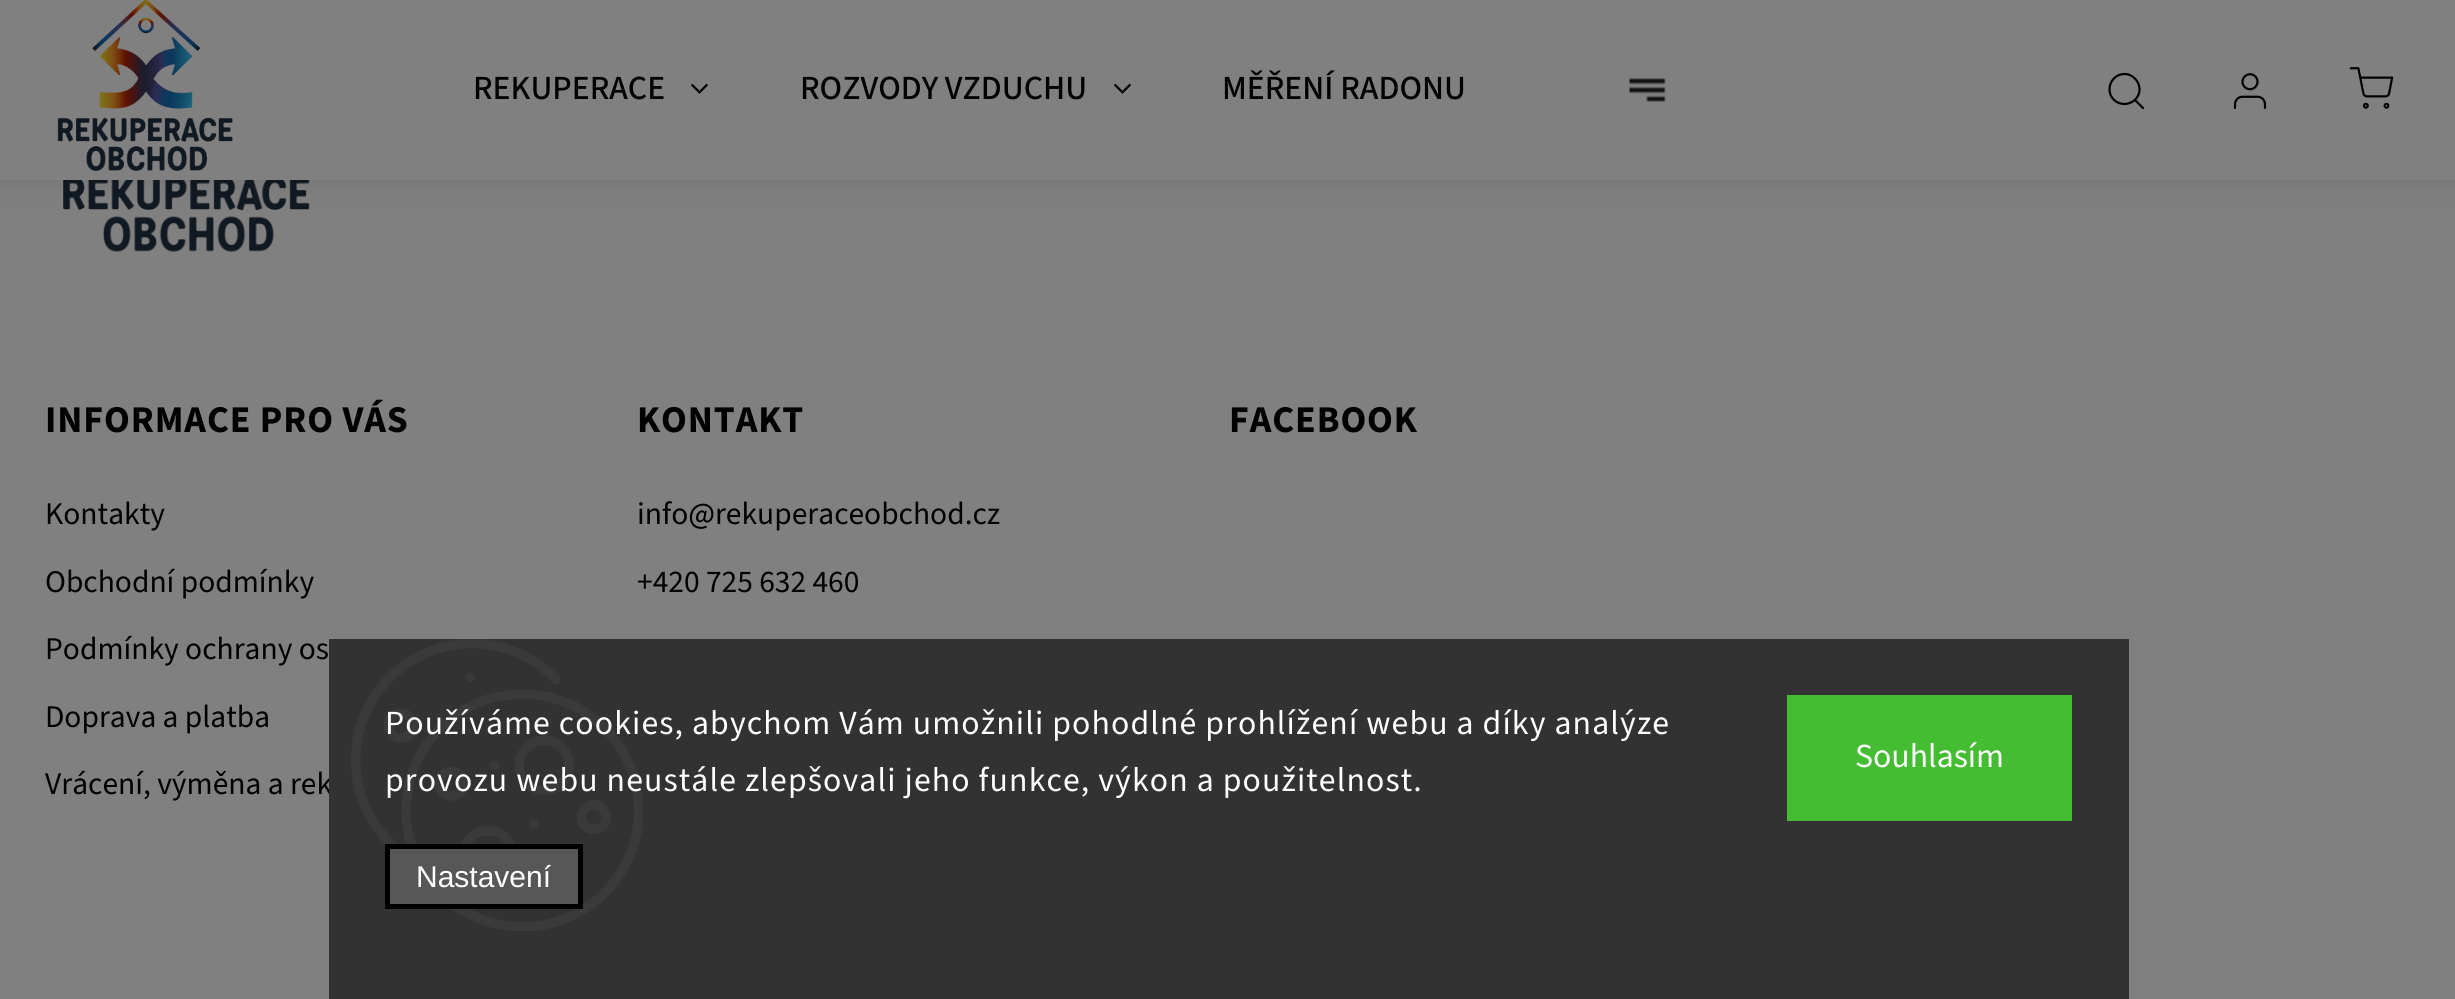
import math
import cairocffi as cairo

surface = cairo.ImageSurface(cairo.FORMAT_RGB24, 2455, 999)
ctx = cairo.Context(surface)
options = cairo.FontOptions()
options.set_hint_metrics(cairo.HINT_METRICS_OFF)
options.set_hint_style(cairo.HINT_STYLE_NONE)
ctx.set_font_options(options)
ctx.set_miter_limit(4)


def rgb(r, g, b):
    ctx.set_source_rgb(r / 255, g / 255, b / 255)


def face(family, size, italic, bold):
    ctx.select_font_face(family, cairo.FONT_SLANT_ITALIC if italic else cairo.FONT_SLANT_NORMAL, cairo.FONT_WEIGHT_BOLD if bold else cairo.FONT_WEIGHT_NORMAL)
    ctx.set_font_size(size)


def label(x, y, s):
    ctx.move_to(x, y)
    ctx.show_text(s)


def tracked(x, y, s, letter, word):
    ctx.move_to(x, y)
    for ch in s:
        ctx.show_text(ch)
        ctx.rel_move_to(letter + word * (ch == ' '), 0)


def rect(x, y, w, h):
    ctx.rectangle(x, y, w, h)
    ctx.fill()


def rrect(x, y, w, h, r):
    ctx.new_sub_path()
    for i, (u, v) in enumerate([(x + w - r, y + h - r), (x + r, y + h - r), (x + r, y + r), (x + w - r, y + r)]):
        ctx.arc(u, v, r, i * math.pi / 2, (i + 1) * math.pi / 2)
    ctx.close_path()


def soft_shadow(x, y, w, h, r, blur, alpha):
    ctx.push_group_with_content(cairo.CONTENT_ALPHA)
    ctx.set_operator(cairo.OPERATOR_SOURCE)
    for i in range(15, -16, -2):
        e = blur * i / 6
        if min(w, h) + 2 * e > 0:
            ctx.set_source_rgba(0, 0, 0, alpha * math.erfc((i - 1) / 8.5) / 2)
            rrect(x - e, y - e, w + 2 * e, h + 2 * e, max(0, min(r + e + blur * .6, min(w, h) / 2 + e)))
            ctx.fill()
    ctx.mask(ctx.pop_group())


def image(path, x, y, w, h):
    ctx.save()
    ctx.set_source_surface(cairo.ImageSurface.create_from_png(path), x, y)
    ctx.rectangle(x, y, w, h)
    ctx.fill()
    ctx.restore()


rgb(255, 255, 255)
ctx.paint()
image('image5.png', 63, 180, 247, 72)
rgb(0, 0, 0)
soft_shadow(0, 0, 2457, 180, 0, 17, 0.1)
rgb(255, 255, 255)
rect(0, 0, 2455, 180)
image('image0.png', 57, 0, 176, 171)
ctx.new_path()
ctx.move_to(2124.5, 104)
ctx.curve_to(2132.5, 104, 2139.5, 97.5, 2139.5, 89.5)
ctx.curve_to(2139.5, 81, 2132.5, 74, 2124.5, 74)
ctx.curve_to(2116, 74, 2109.5, 81, 2109.5, 89.5)
ctx.curve_to(2109.5, 97.5, 2116, 104, 2124.5, 104)
ctx.close_path()
ctx.move_to(2143, 108)
ctx.line_to(2135, 100)
rgb(0, 0, 0)
ctx.set_line_width(2.2)
ctx.set_line_cap(cairo.LINE_CAP_ROUND)
ctx.set_line_join(cairo.LINE_JOIN_ROUND)
ctx.stroke()
image('image1.png', 2233, 73, 34, 37)
image('image2.png', 2349, 67, 45, 42)
face('Source Sans 3 Medium', 33.75, 0, 0)
label(473, 99, 'REKUPERACE')
image('image3.png', 690, 83, 18, 11)
label(800, 99, 'ROZVODY VZDUCHU')
image('image3.png', 1113, 83, 18, 11)
label(1222, 99, 'MĚŘENÍ RADONU')
image('image4.png', 1629, 78, 37, 24)
face('Source Sans 3', 37.75, 0, 1)
tracked(45, 432, 'INFORMACE PRO VÁS', 0.9, 0)
face('Source Sans 3', 31.5, 0, 0)
label(45, 524, 'Kontakty')
label(45, 592, 'Obchodní podmínky')
label(45, 659, 'Podmínky ochrany os')
label(45, 727, 'Doprava a platba')
label(45, 794, 'Vrácení, výměna a rek')
face('Source Sans 3', 37.75, 0, 1)
tracked(637, 432, 'KONTAKT', 0.9, 0)
face('Source Sans 3', 31.5, 0, 0)
label(637, 524, 'info@rekuperaceobchod.cz')
label(637, 592, '+420 725 632 460')
face('Source Sans 3', 37.75, 0, 1)
tracked(1229, 432, 'FACEBOOK', 0.9, 0)
rgb(0, 0, 0)
soft_shadow(-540, -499, 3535, 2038, 0, 180, 0.5)
rgb(50, 50, 50)
rect(329, 639, 1800, 360)
image('image6.png', 351, 639, 292, 292)
face('Source Sans 3', 33.75, 0, 0)
rgb(255, 255, 255)
tracked(385, 734, 'Používáme cookies, abychom Vám umožnili pohodlné prohlížení webu a díky analýze', 1.12, 0)
tracked(385, 791, 'provozu webu neustále zlepšovali jeho funkce, výkon a použitelnost.', 1.12, 0)
rgb(88, 87, 87)
ctx.rectangle(387.5, 846.5, 193, 60)
ctx.fill_preserve()
rgb(0, 0, 0)
ctx.set_line_width(5)
ctx.set_line_cap(cairo.LINE_CAP_BUTT)
ctx.set_line_join(cairo.LINE_JOIN_MITER)
ctx.stroke()
face('Liberation Sans', 30, 0, 0)
rgb(255, 255, 255)
label(416, 887, 'Nastavení')
rgb(68, 189, 50)
rect(1787, 695, 285, 126)
face('Source Sans 3', 33.75, 0, 0)
rgb(255, 255, 255)
label(1855, 767, 'Souhlasím')
surface.write_to_png('render.png')
